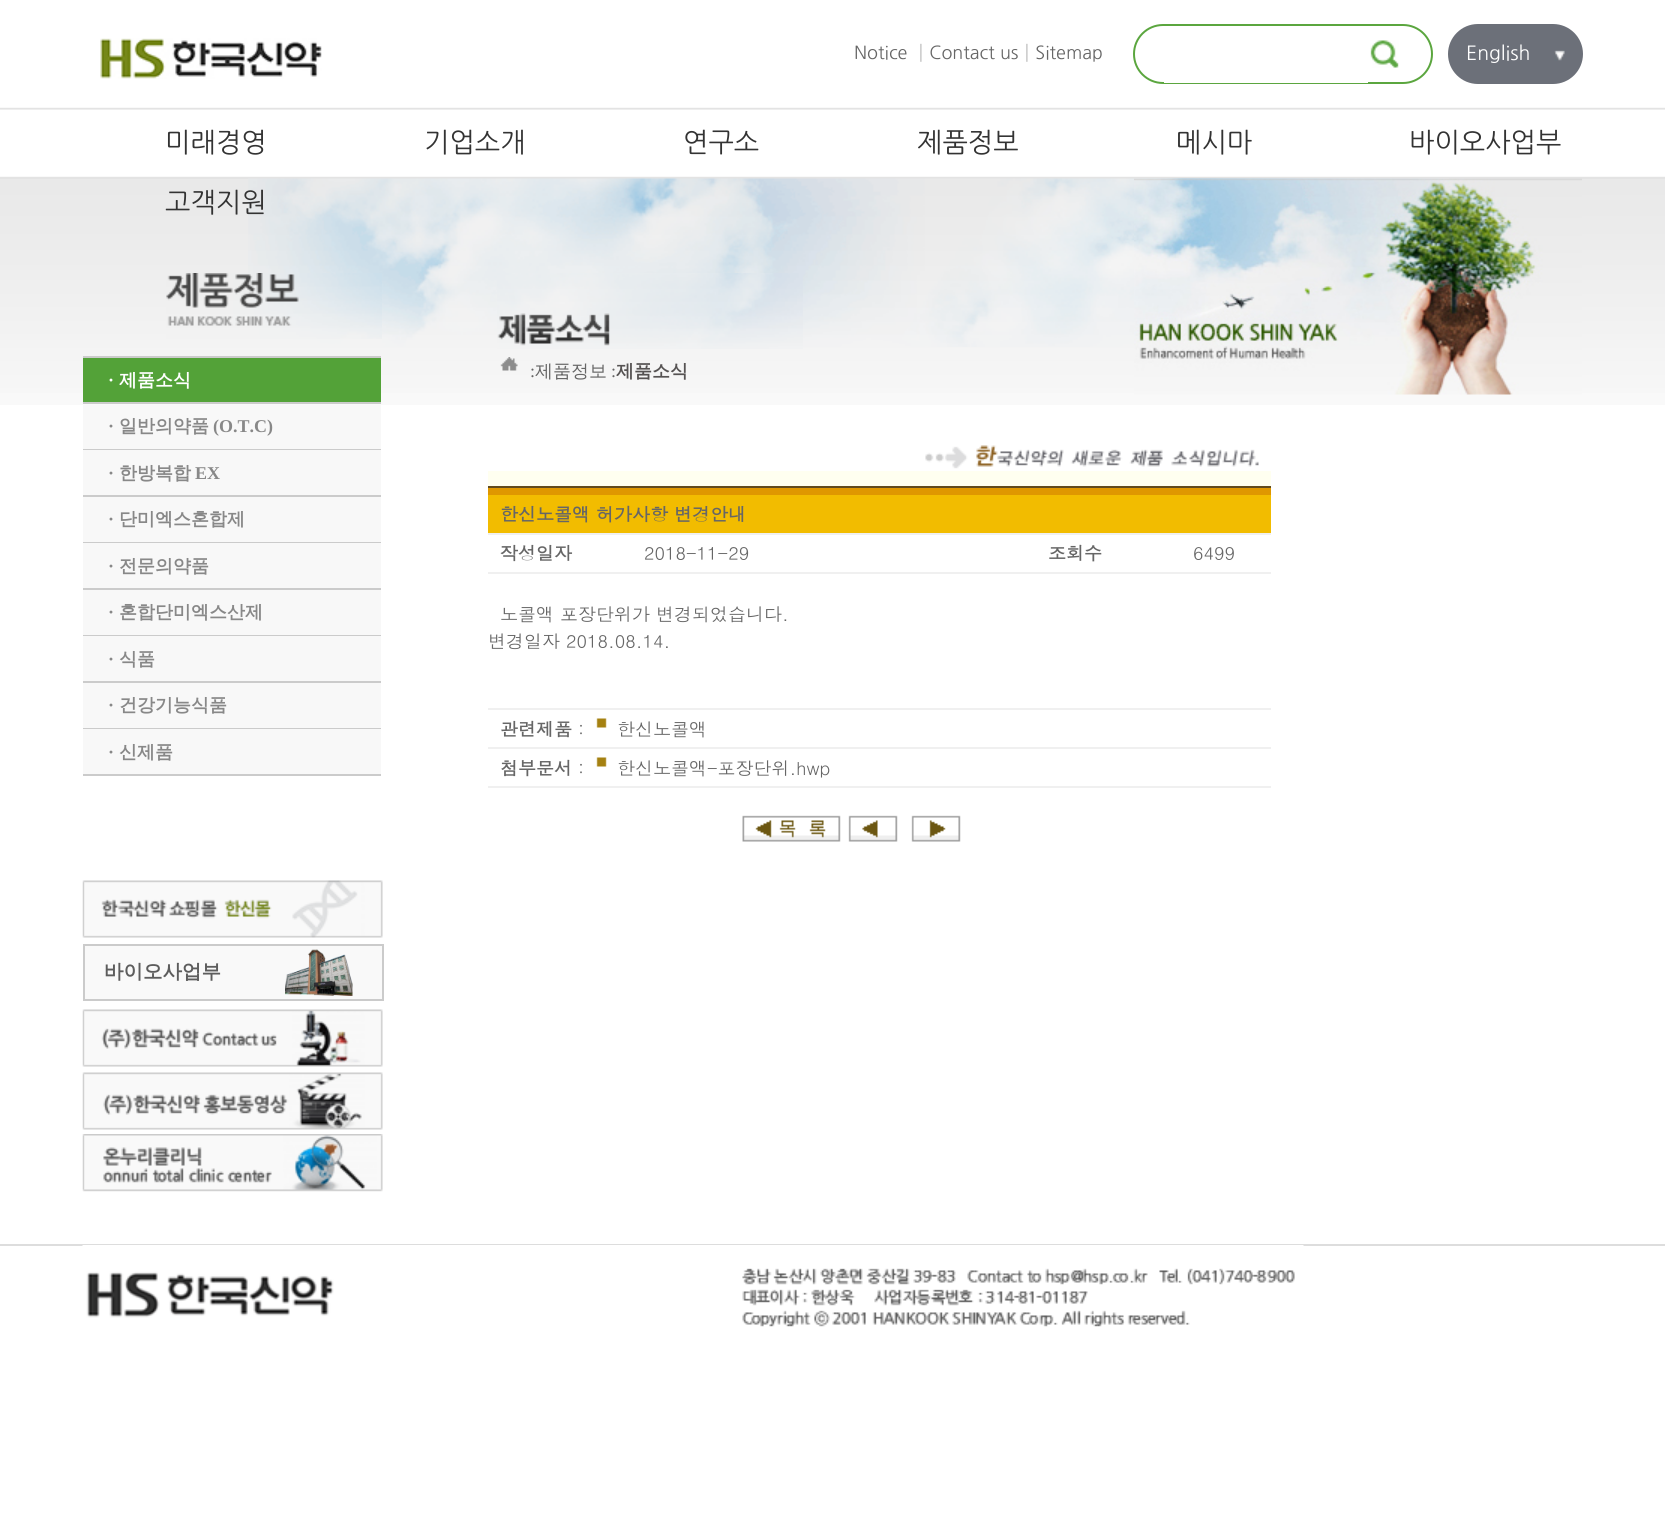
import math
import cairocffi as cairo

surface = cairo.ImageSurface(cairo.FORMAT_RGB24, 1665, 1523)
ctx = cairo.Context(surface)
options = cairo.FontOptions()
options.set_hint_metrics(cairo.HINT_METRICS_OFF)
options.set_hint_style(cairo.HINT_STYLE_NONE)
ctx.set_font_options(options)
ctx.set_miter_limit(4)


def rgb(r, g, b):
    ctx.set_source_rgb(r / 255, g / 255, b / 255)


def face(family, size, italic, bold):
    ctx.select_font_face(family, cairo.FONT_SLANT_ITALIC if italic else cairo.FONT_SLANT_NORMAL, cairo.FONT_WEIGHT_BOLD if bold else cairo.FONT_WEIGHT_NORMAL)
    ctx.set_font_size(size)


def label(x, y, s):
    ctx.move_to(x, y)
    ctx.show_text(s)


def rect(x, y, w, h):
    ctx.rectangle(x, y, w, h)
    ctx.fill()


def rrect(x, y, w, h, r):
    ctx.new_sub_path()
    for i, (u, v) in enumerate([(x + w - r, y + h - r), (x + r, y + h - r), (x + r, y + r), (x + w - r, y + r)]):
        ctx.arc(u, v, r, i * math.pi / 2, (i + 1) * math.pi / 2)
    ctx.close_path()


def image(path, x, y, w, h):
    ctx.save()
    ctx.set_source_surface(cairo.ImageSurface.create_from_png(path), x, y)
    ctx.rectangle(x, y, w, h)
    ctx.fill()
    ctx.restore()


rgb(255, 255, 255)
ctx.paint()
image('image0.png', 0, 107, 1665, 298)
image('image1.png', 100, 38, 222, 41)
face('NanumGothic', 18, 0, 0)
rgb(102, 102, 102)
label(854, 59, 'Notice │Contact us│Sitemap')
rrect(1134, 25, 298, 58, 29)
rgb(91, 166, 63)
ctx.stroke()
image('image2.png', 1370, 40, 29, 28)
rgb(255, 255, 255)
rect(1164, 82, 204, 1)
rgb(108, 112, 121)
rrect(1448, 24, 135, 60, 30)
ctx.fill()
image('image3.png', 1554, 50, 11, 11)
face('NanumGothic', 19.5, 0, 0)
rgb(255, 255, 255)
label(1466, 60, 'English')
face('NanumGothic', 27, 0, 0)
rgb(51, 51, 51)
label(165, 152, '미래경영')
label(424, 152, '기업소개')
label(683, 152, '연구소')
label(917, 152, '제품정보')
label(1176, 152, '메시마')
label(1409, 152, '바이오사업부')
image('image4.png', 248, 178, 1201, 169)
label(165, 212, '고객지원')
image('image5.png', 166, 273, 216, 66)
rgb(83, 162, 56)
rect(83, 358, 298, 44)
rgb(203, 203, 203)
rect(83, 356, 298, 2)
rect(83, 402, 298, 2)
face('Liberation Serif', 18, 0, 1)
rgb(255, 255, 255)
label(108, 386, '·')
face('WenQuanYi Zen Hei', 18, 0, 1)
label(119, 386, '제품소식')
rgb(248, 248, 248)
rect(83, 405, 298, 44)
rgb(203, 203, 203)
rect(83, 449, 298, 1)
face('Liberation Serif', 18, 0, 1)
rgb(136, 136, 136)
label(108, 432, '·')
face('WenQuanYi Zen Hei', 18, 0, 1)
label(119, 432, '일반의약품')
face('Liberation Serif', 18, 0, 1)
label(213, 432, '(O.T.C)')
rgb(248, 248, 248)
rect(83, 450, 298, 45)
rgb(203, 203, 203)
rect(83, 495, 298, 2)
rgb(136, 136, 136)
label(108, 479, '·')
face('WenQuanYi Zen Hei', 18, 0, 1)
label(119, 479, '한방복합')
face('Liberation Serif', 18, 0, 1)
label(195, 479, 'EX')
rgb(248, 248, 248)
rect(83, 497, 298, 45)
rgb(203, 203, 203)
rect(83, 542, 298, 1)
rgb(136, 136, 136)
label(108, 525, '·')
face('WenQuanYi Zen Hei', 18, 0, 1)
label(119, 525, '단미엑스혼합제')
rgb(248, 248, 248)
rect(83, 543, 298, 45)
rgb(203, 203, 203)
rect(83, 588, 298, 2)
face('Liberation Serif', 18, 0, 1)
rgb(136, 136, 136)
label(108, 572, '·')
face('WenQuanYi Zen Hei', 18, 0, 1)
label(119, 572, '전문의약품')
rgb(248, 248, 248)
rect(83, 590, 298, 45)
rgb(203, 203, 203)
rect(83, 635, 298, 1)
face('Liberation Serif', 18, 0, 1)
rgb(136, 136, 136)
label(108, 618, '·')
face('WenQuanYi Zen Hei', 18, 0, 1)
label(119, 618, '혼합단미엑스산제')
rgb(248, 248, 248)
rect(83, 636, 298, 45)
rgb(203, 203, 203)
rect(83, 681, 298, 2)
face('Liberation Serif', 18, 0, 1)
rgb(136, 136, 136)
label(108, 665, '·')
face('WenQuanYi Zen Hei', 18, 0, 1)
label(119, 665, '식품')
rgb(248, 248, 248)
rect(83, 683, 298, 45)
rgb(203, 203, 203)
rect(83, 728, 298, 1)
face('Liberation Serif', 18, 0, 1)
rgb(136, 136, 136)
label(108, 711, '·')
face('WenQuanYi Zen Hei', 18, 0, 1)
label(119, 711, '건강기능식품')
rgb(248, 248, 248)
rect(83, 729, 298, 45)
rgb(203, 203, 203)
rect(83, 774, 298, 2)
face('Liberation Serif', 18, 0, 1)
rgb(136, 136, 136)
label(108, 758, '·')
face('WenQuanYi Zen Hei', 18, 0, 1)
label(119, 758, '신제품')
image('image6.png', 82, 880, 301, 58)
rgb(249, 249, 249)
rect(85, 946, 297, 53)
image('image7.png', 285, 949, 68, 47)
ctx.rectangle(84, 945, 299, 55)
rgb(203, 203, 203)
ctx.stroke()
face('WenQuanYi Zen Hei', 19.5, 0, 1)
rgb(93, 93, 93)
label(104, 978, '바이오사업부')
image('image8.png', 82, 1009, 301, 58)
image('image9.png', 82, 1072, 301, 58)
image('image10.png', 82, 1134, 301, 58)
image('image11.png', 497, 273, 306, 76)
image('image12.png', 500, 357, 18, 14)
face('Liberation Serif', 18, 0, 0)
rgb(102, 102, 102)
label(530, 377, ':')
face('WenQuanYi Zen Hei Medium', 18, 0, 0)
label(535, 377, '제품정보')
face('Liberation Serif', 18, 0, 0)
label(611, 377, ':')
face('WenQuanYi Zen Hei', 18, 0, 1)
rgb(86, 83, 83)
label(616, 377, '제품소식')
image('image13.png', 1134, 178, 448, 217)
image('image14.png', 925, 445, 334, 24)
rgb(255, 255, 240)
rect(488, 471, 783, 15)
rgb(97, 74, 29)
rect(488, 486, 783, 2)
rgb(223, 151, 0)
rect(488, 488, 783, 7)
rgb(242, 188, 0)
rect(488, 495, 783, 38)
face('Dotum', 18, 0, 1)
rgb(102, 102, 102)
label(500, 521, '한신노콜액 허가사항 변경안내')
rgb(240, 240, 240)
rect(488, 533, 783, 2)
rgb(102, 102, 102)
label(500, 560, '작성일자')
face('Dotum', 18, 0, 0)
label(644, 560, '2018-11-29')
face('Dotum', 18, 0, 1)
label(1048, 560, '조회수')
face('Dotum', 18, 0, 0)
label(1193, 560, '6499')
rgb(240, 240, 240)
rect(488, 572, 783, 2)
rgb(102, 102, 102)
label(500, 621, '노콜액 포장단위가 변경되었습니다.')
label(488, 648, '변경일자 2018.08.14.')
rgb(240, 240, 240)
rect(488, 708, 783, 2)
face('Dotum', 18, 0, 1)
rgb(102, 102, 102)
label(500, 736, '관련제품')
face('Dotum', 18, 0, 0)
label(578, 736, ':')
image('image15.png', 596, 718, 11, 10)
label(617, 736, '한신노콜액')
rgb(240, 240, 240)
rect(488, 747, 783, 2)
face('Dotum', 18, 0, 1)
rgb(102, 102, 102)
label(500, 775, '첨부문서')
face('Dotum', 18, 0, 0)
label(578, 775, ':')
image('image15.png', 596, 757, 11, 10)
label(617, 775, '한신노콜액-포장단위.hwp')
rgb(240, 240, 240)
rect(488, 786, 783, 2)
image('image16.png', 742, 815, 99, 27)
image('image17.png', 848, 815, 50, 27)
image('image18.png', 911, 815, 50, 27)
rgb(221, 221, 221)
rect(0, 1244, 1665, 2)
image('image19.png', 82, 1245, 1222, 82)
surface.write_to_png('render.png')
